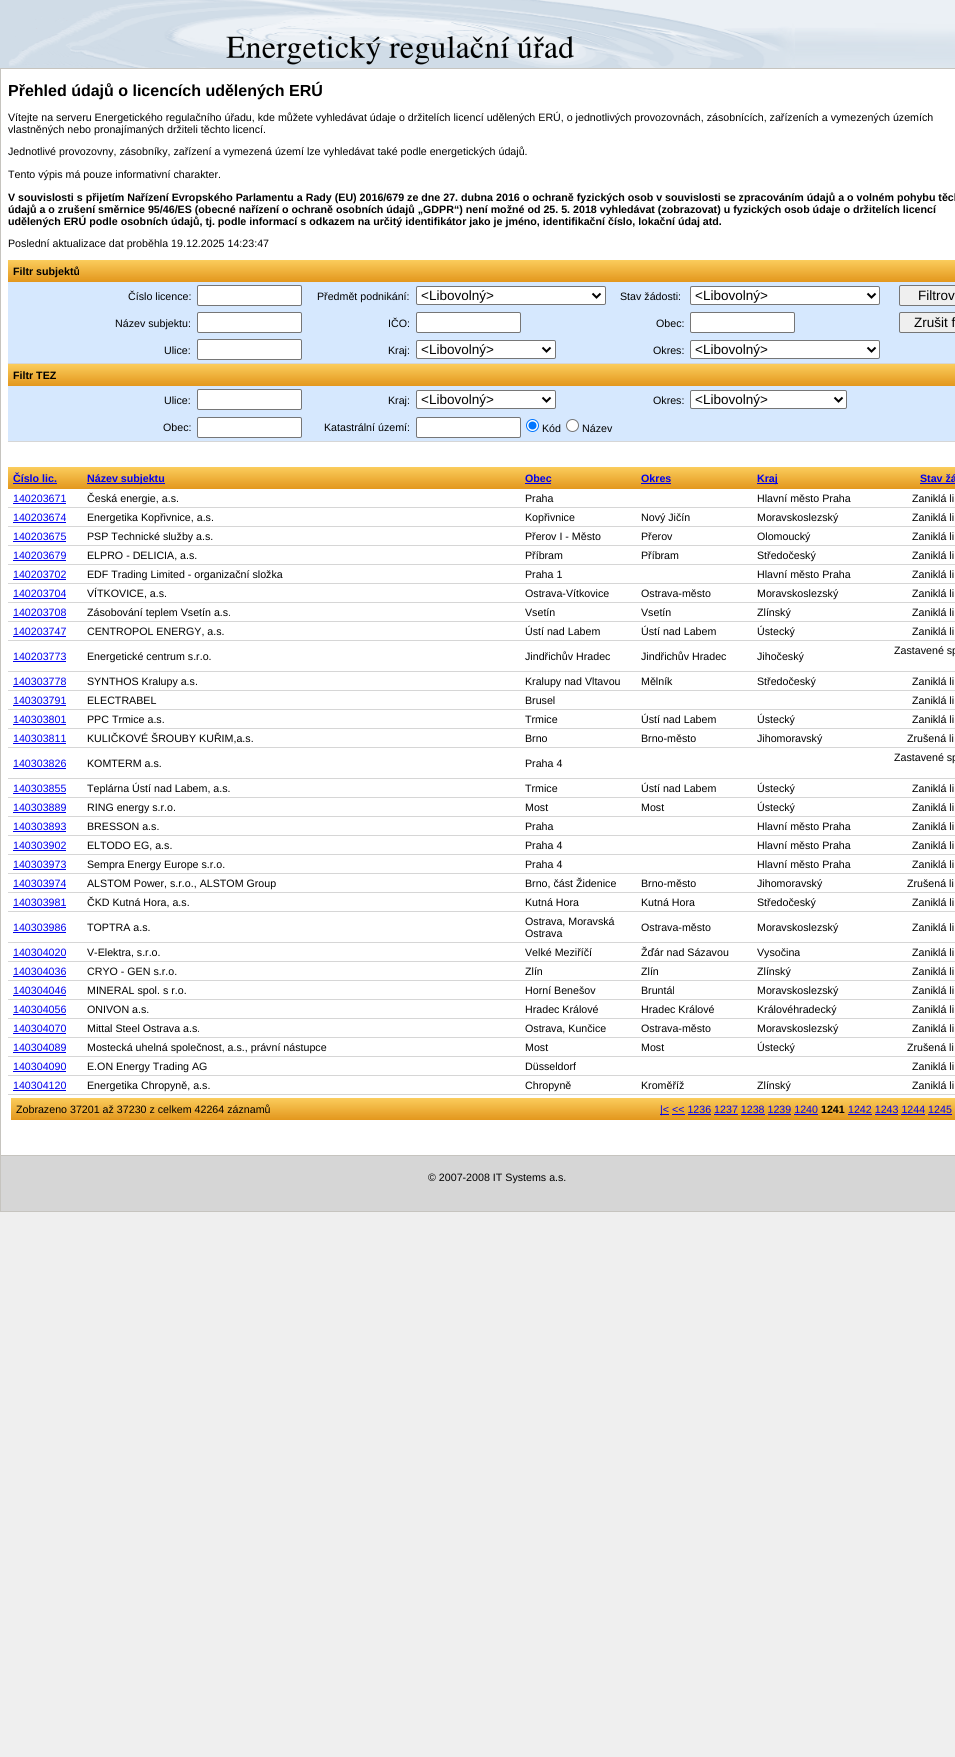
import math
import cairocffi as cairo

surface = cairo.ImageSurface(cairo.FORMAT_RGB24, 955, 1757)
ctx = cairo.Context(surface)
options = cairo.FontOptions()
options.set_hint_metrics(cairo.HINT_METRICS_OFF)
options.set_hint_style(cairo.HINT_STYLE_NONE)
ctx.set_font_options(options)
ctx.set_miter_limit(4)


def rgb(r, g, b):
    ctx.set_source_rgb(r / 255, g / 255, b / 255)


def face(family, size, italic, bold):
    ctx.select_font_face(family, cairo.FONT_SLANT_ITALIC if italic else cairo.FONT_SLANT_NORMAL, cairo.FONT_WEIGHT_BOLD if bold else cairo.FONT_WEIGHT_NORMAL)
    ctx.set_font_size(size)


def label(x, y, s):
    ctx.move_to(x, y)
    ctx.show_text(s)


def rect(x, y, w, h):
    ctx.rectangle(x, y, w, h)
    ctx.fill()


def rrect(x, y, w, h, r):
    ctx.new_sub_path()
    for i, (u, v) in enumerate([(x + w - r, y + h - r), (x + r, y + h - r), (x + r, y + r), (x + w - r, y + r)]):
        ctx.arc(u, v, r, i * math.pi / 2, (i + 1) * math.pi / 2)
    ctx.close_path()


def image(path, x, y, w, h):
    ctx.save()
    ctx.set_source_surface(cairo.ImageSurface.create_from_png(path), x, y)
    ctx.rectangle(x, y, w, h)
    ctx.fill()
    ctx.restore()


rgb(239, 239, 239)
ctx.paint()
image('image0.png', 0, 0, 955, 68)
rgb(255, 255, 255)
rect(1, 69, 954, 1086)
rgb(198, 196, 191)
rect(0, 68, 1, 1087)
rect(0, 68, 955, 1)
face('Liberation Sans', 16, 0, 1)
rgb(0, 0, 0)
label(8, 96, 'Přehled údajů o licencích udělených ERÚ')
face('Liberation Sans', 10.67, 0, 0)
label(8, 121, 'Vítejte na serveru Energetického regulačního úřadu, kde můžete vyhledávat údaje o držitelích licencí udělených ERÚ, o jednotlivých provozovnách, zásobnících, zařízeních a vymezených územích')
label(8, 133, 'vlastněných nebo pronajímaných držiteli těchto licencí.')
label(8, 155, 'Jednotlivé provozovny, zásobníky, zařízení a vymezená území lze vyhledávat také podle energetických údajů.')
label(8, 178, 'Tento výpis má pouze informativní charakter.')
face('Liberation Sans', 10.67, 0, 1)
label(8, 201, 'V souvislosti s přijetím Nařízení Evropského Parlamentu a Rady (EU) 2016/679 ze dne 27. dubna 2016 o ochraně fyzických osob v souvislosti se zpracováním údajů a o volném pohybu těch')
label(8, 213, 'údajů a o zrušení směrnice 95/46/ES (obecné nařízení o ochraně osobních údajů „GDPR“) není možné od 25. 5. 2018 vyhledávat (zobrazovat) u fyzických osob údaje o držitelích licencí')
label(8, 225, 'udělených ERÚ podle osobních údajů, tj. podle informací s odkazem na určitý identifikátor jako je jméno, identifikační číslo, lokační údaj atd.')
face('Liberation Sans', 10.67, 0, 0)
label(8, 247, 'Poslední aktualizace dat proběhla 19.12.2025 14:23:47')
rgb(214, 214, 214)
rect(8, 441, 947, 1)
image('image1.png', 8, 260, 947, 22)
face('Liberation Sans', 10.67, 0, 1)
rgb(0, 0, 0)
label(13, 275, 'Filtr subjektů')
rgb(214, 232, 254)
rect(8, 282, 947, 27)
face('Liberation Sans', 10.67, 0, 0)
rgb(0, 0, 0)
label(128, 300, 'Číslo licence:')
rgb(255, 255, 255)
rrect(197.5, 285.5, 104, 20, 1.5)
ctx.fill_preserve()
rgb(118, 118, 118)
ctx.set_line_width(1)
ctx.stroke()
rgb(0, 0, 0)
label(317, 300, 'Předmět podnikání:')
rgb(255, 255, 255)
rrect(416.5, 286.5, 189, 18, 1.5)
ctx.fill_preserve()
rgb(118, 118, 118)
ctx.stroke()
ctx.new_path()
ctx.move_to(592.5, 293.5)
ctx.line_to(596.5, 297.5)
ctx.line_to(600.5, 293.5)
rgb(0, 0, 0)
ctx.set_line_width(2)
ctx.stroke()
face('Liberation Sans', 13.5, 0, 0)
label(421, 300, '<Libovolný>')
face('Liberation Sans', 10.67, 0, 0)
label(620, 300, 'Stav žádosti:')
rgb(255, 255, 255)
rrect(690.5, 286.5, 189, 18, 1.5)
ctx.fill_preserve()
rgb(118, 118, 118)
ctx.set_line_width(1)
ctx.stroke()
ctx.new_path()
ctx.move_to(867.5, 293.5)
ctx.line_to(871.5, 297.5)
ctx.line_to(875.5, 293.5)
rgb(0, 0, 0)
ctx.set_line_width(2)
ctx.stroke()
face('Liberation Sans', 13.5, 0, 0)
label(695, 300, '<Libovolný>')
rgb(239, 239, 239)
rrect(899.5, 285.5, 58, 20, 1.5)
ctx.fill_preserve()
rgb(118, 118, 118)
ctx.set_line_width(1)
ctx.stroke()
rgb(0, 0, 0)
label(918, 300, 'Filtrov')
rgb(214, 232, 254)
rect(8, 309, 947, 27)
face('Liberation Sans', 10.67, 0, 0)
rgb(0, 0, 0)
label(115, 327, 'Název subjektu:')
rgb(255, 255, 255)
rrect(197.5, 312.5, 104, 20, 1.5)
ctx.fill_preserve()
rgb(118, 118, 118)
ctx.stroke()
rgb(0, 0, 0)
label(388, 327, 'IČO:')
rgb(255, 255, 255)
rrect(416.5, 312.5, 104, 20, 1.5)
ctx.fill_preserve()
rgb(118, 118, 118)
ctx.stroke()
rgb(0, 0, 0)
label(656, 327, 'Obec:')
rgb(255, 255, 255)
rrect(690.5, 312.5, 104, 20, 1.5)
ctx.fill_preserve()
rgb(118, 118, 118)
ctx.stroke()
rgb(239, 239, 239)
rrect(899.5, 312.5, 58, 20, 1.5)
ctx.fill_preserve()
rgb(118, 118, 118)
ctx.stroke()
face('Liberation Sans', 13.5, 0, 0)
rgb(0, 0, 0)
label(914, 327, 'Zrušit f')
rgb(214, 232, 254)
rect(8, 336, 947, 27)
rgb(214, 214, 214)
rect(8, 363, 947, 1)
face('Liberation Sans', 10.67, 0, 0)
rgb(0, 0, 0)
label(164, 354, 'Ulice:')
rgb(255, 255, 255)
rrect(197.5, 339.5, 104, 20, 1.5)
ctx.fill_preserve()
rgb(118, 118, 118)
ctx.stroke()
rgb(0, 0, 0)
label(388, 354, 'Kraj:')
rgb(255, 255, 255)
rrect(416.5, 340.5, 139, 18, 1.5)
ctx.fill_preserve()
rgb(118, 118, 118)
ctx.stroke()
ctx.new_path()
ctx.move_to(542.5, 347.5)
ctx.line_to(546.5, 351.5)
ctx.line_to(550.5, 347.5)
rgb(0, 0, 0)
ctx.set_line_width(2)
ctx.stroke()
face('Liberation Sans', 13.5, 0, 0)
label(421, 354, '<Libovolný>')
face('Liberation Sans', 10.67, 0, 0)
label(653, 354, 'Okres:')
rgb(255, 255, 255)
rrect(690.5, 340.5, 189, 18, 1.5)
ctx.fill_preserve()
rgb(118, 118, 118)
ctx.set_line_width(1)
ctx.stroke()
ctx.new_path()
ctx.move_to(867.5, 347.5)
ctx.line_to(871.5, 351.5)
ctx.line_to(875.5, 347.5)
rgb(0, 0, 0)
ctx.set_line_width(2)
ctx.stroke()
face('Liberation Sans', 13.5, 0, 0)
label(695, 354, '<Libovolný>')
image('image1.png', 8, 364, 947, 22)
face('Liberation Sans', 10.67, 0, 1)
label(13, 379, 'Filtr TEZ')
rgb(214, 232, 254)
rect(8, 386, 947, 27)
face('Liberation Sans', 10.67, 0, 0)
rgb(0, 0, 0)
label(164, 404, 'Ulice:')
rgb(255, 255, 255)
rrect(197.5, 389.5, 104, 20, 1.5)
ctx.fill_preserve()
rgb(118, 118, 118)
ctx.set_line_width(1)
ctx.stroke()
rgb(0, 0, 0)
label(388, 404, 'Kraj:')
rgb(255, 255, 255)
rrect(416.5, 390.5, 139, 18, 1.5)
ctx.fill_preserve()
rgb(118, 118, 118)
ctx.stroke()
ctx.new_path()
ctx.move_to(542.5, 397.5)
ctx.line_to(546.5, 401.5)
ctx.line_to(550.5, 397.5)
rgb(0, 0, 0)
ctx.set_line_width(2)
ctx.stroke()
face('Liberation Sans', 13.5, 0, 0)
label(421, 404, '<Libovolný>')
face('Liberation Sans', 10.67, 0, 0)
label(653, 404, 'Okres:')
rgb(255, 255, 255)
rrect(690.5, 390.5, 156, 18, 1.5)
ctx.fill_preserve()
rgb(118, 118, 118)
ctx.set_line_width(1)
ctx.stroke()
ctx.new_path()
ctx.move_to(834.5, 397.5)
ctx.line_to(838.5, 401.5)
ctx.line_to(842.5, 397.5)
rgb(0, 0, 0)
ctx.set_line_width(2)
ctx.stroke()
face('Liberation Sans', 13.5, 0, 0)
label(695, 404, '<Libovolný>')
rgb(214, 232, 254)
rect(8, 413, 947, 28)
face('Liberation Sans', 10.67, 0, 0)
rgb(0, 0, 0)
label(163, 431, 'Obec:')
rgb(255, 255, 255)
rrect(197.5, 417.5, 104, 20, 1.5)
ctx.fill_preserve()
rgb(118, 118, 118)
ctx.set_line_width(1)
ctx.stroke()
rgb(0, 0, 0)
label(324, 431, 'Katastrální území:')
rgb(255, 255, 255)
rrect(416.5, 417.5, 104, 20, 1.5)
ctx.fill_preserve()
rgb(118, 118, 118)
ctx.stroke()
rgb(255, 255, 255)
ctx.arc(532.5, 425.5, 6, 0, 2 * math.pi)
ctx.fill_preserve()
rgb(0, 117, 255)
ctx.stroke()
ctx.arc(532.5, 425.5, 4, 0, 2 * math.pi)
ctx.fill()
rgb(0, 0, 0)
label(542, 432, 'Kód')
rgb(255, 255, 255)
ctx.new_path()
ctx.arc(572.5, 425.5, 6, 0, 2 * math.pi)
ctx.fill_preserve()
rgb(118, 118, 118)
ctx.stroke()
rgb(0, 0, 0)
label(582, 432, 'Název')
image('image2.png', 8, 467, 74, 22)
face('Liberation Sans', 10.67, 0, 1)
rgb(0, 0, 238)
label(13, 482, 'Číslo lic.')
rect(13, 483, 44, 1)
image('image3.png', 82, 467, 438, 22)
rect(87, 483, 78, 1)
label(87, 482, 'Název subjektu')
image('image4.png', 520, 467, 116, 22)
label(525, 482, 'Obec')
rect(525, 483, 26, 1)
image('image4.png', 636, 467, 116, 22)
label(641, 482, 'Okres')
rect(641, 483, 30, 1)
image('image5.png', 752, 467, 119, 22)
rect(757, 483, 21, 1)
label(757, 482, 'Kraj')
image('image6.png', 871, 467, 84, 22)
label(920, 482, 'Stav žá')
rect(920, 483, 35, 1)
rgb(214, 214, 214)
rect(8, 507, 947, 1)
face('Liberation Sans', 10.67, 0, 0)
rgb(0, 0, 238)
label(13, 502, '140203671')
rect(13, 503, 53, 1)
rgb(0, 0, 0)
label(87, 502, 'Česká energie, a.s.')
label(525, 502, 'Praha')
label(757, 502, 'Hlavní město Praha')
label(912, 502, 'Zaniklá li')
rgb(214, 214, 214)
rect(8, 526, 947, 1)
rgb(0, 0, 238)
label(13, 521, '140203674')
rect(13, 522, 53, 1)
rgb(0, 0, 0)
label(87, 521, 'Energetika Kopřivnice, a.s.')
label(525, 521, 'Kopřivnice')
label(641, 521, 'Nový Jičín')
label(757, 521, 'Moravskoslezský')
label(912, 521, 'Zaniklá li')
rgb(214, 214, 214)
rect(8, 545, 947, 1)
rgb(0, 0, 238)
label(13, 540, '140203675')
rect(13, 541, 53, 1)
rgb(0, 0, 0)
label(87, 540, 'PSP Technické služby a.s.')
label(525, 540, 'Přerov I - Město')
label(641, 540, 'Přerov')
label(757, 540, 'Olomoucký')
label(912, 540, 'Zaniklá li')
rgb(214, 214, 214)
rect(8, 564, 947, 1)
rgb(0, 0, 238)
label(13, 559, '140203679')
rect(13, 560, 53, 1)
rgb(0, 0, 0)
label(87, 559, 'ELPRO - DELICIA, a.s.')
label(525, 559, 'Příbram')
label(641, 559, 'Příbram')
label(757, 559, 'Středočeský')
label(912, 559, 'Zaniklá li')
rgb(214, 214, 214)
rect(8, 583, 947, 1)
rgb(0, 0, 238)
label(13, 578, '140203702')
rect(13, 579, 53, 1)
rgb(0, 0, 0)
label(87, 578, 'EDF Trading Limited - organizační složka')
label(525, 578, 'Praha 1')
label(757, 578, 'Hlavní město Praha')
label(912, 578, 'Zaniklá li')
rgb(214, 214, 214)
rect(8, 602, 947, 1)
rgb(0, 0, 238)
label(13, 597, '140203704')
rect(13, 598, 53, 1)
rgb(0, 0, 0)
label(87, 597, 'VÍTKOVICE, a.s.')
label(525, 597, 'Ostrava-Vítkovice')
label(641, 597, 'Ostrava-město')
label(757, 597, 'Moravskoslezský')
label(912, 597, 'Zaniklá li')
rgb(214, 214, 214)
rect(8, 621, 947, 1)
rgb(0, 0, 238)
label(13, 616, '140203708')
rect(13, 617, 53, 1)
rgb(0, 0, 0)
label(87, 616, 'Zásobování teplem Vsetín a.s.')
label(525, 616, 'Vsetín')
label(641, 616, 'Vsetín')
label(757, 616, 'Zlínský')
label(912, 616, 'Zaniklá li')
rgb(214, 214, 214)
rect(8, 640, 947, 1)
rgb(0, 0, 238)
label(13, 635, '140203747')
rect(13, 636, 53, 1)
rgb(0, 0, 0)
label(87, 635, 'CENTROPOL ENERGY, a.s.')
label(525, 635, 'Ústí nad Labem')
label(641, 635, 'Ústí nad Labem')
label(757, 635, 'Ústecký')
label(912, 635, 'Zaniklá li')
rgb(214, 214, 214)
rect(8, 671, 947, 1)
rgb(0, 0, 238)
label(13, 660, '140203773')
rect(13, 661, 53, 1)
rgb(0, 0, 0)
label(87, 660, 'Energetické centrum s.r.o.')
label(525, 660, 'Jindřichův Hradec')
label(641, 660, 'Jindřichův Hradec')
label(757, 660, 'Jihočeský')
label(894, 654, 'Zastavené sp')
rgb(214, 214, 214)
rect(8, 690, 947, 1)
rgb(0, 0, 238)
label(13, 685, '140303778')
rect(13, 686, 53, 1)
rgb(0, 0, 0)
label(87, 685, 'SYNTHOS Kralupy a.s.')
label(525, 685, 'Kralupy nad Vltavou')
label(641, 685, 'Mělník')
label(757, 685, 'Středočeský')
label(912, 685, 'Zaniklá li')
rgb(214, 214, 214)
rect(8, 709, 947, 1)
rgb(0, 0, 238)
label(13, 704, '140303791')
rect(13, 705, 53, 1)
rgb(0, 0, 0)
label(87, 704, 'ELECTRABEL')
label(525, 704, 'Brusel')
label(912, 704, 'Zaniklá li')
rgb(214, 214, 214)
rect(8, 728, 947, 1)
rgb(0, 0, 238)
label(13, 723, '140303801')
rect(13, 724, 53, 1)
rgb(0, 0, 0)
label(87, 723, 'PPC Trmice a.s.')
label(525, 723, 'Trmice')
label(641, 723, 'Ústí nad Labem')
label(757, 723, 'Ústecký')
label(912, 723, 'Zaniklá li')
rgb(214, 214, 214)
rect(8, 747, 947, 1)
rgb(0, 0, 238)
label(13, 742, '140303811')
rect(13, 743, 53, 1)
rgb(0, 0, 0)
label(87, 742, 'KULIČKOVÉ ŠROUBY KUŘIM,a.s.')
label(525, 742, 'Brno')
label(641, 742, 'Brno-město')
label(757, 742, 'Jihomoravský')
label(907, 742, 'Zrušená li')
rgb(214, 214, 214)
rect(8, 778, 947, 1)
rgb(0, 0, 238)
label(13, 767, '140303826')
rect(13, 768, 53, 1)
rgb(0, 0, 0)
label(87, 767, 'KOMTERM a.s.')
label(525, 767, 'Praha 4')
label(894, 761, 'Zastavené sp')
rgb(214, 214, 214)
rect(8, 797, 947, 1)
rgb(0, 0, 238)
label(13, 792, '140303855')
rect(13, 793, 53, 1)
rgb(0, 0, 0)
label(87, 792, 'Teplárna Ústí nad Labem, a.s.')
label(525, 792, 'Trmice')
label(641, 792, 'Ústí nad Labem')
label(757, 792, 'Ústecký')
label(912, 792, 'Zaniklá li')
rgb(214, 214, 214)
rect(8, 816, 947, 1)
rgb(0, 0, 238)
label(13, 811, '140303889')
rect(13, 812, 53, 1)
rgb(0, 0, 0)
label(87, 811, 'RING energy s.r.o.')
label(525, 811, 'Most')
label(641, 811, 'Most')
label(757, 811, 'Ústecký')
label(912, 811, 'Zaniklá li')
rgb(214, 214, 214)
rect(8, 835, 947, 1)
rgb(0, 0, 238)
label(13, 830, '140303893')
rect(13, 831, 53, 1)
rgb(0, 0, 0)
label(87, 830, 'BRESSON a.s.')
label(525, 830, 'Praha')
label(757, 830, 'Hlavní město Praha')
label(912, 830, 'Zaniklá li')
rgb(214, 214, 214)
rect(8, 854, 947, 1)
rgb(0, 0, 238)
label(13, 849, '140303902')
rect(13, 850, 53, 1)
rgb(0, 0, 0)
label(87, 849, 'ELTODO EG, a.s.')
label(525, 849, 'Praha 4')
label(757, 849, 'Hlavní město Praha')
label(912, 849, 'Zaniklá li')
rgb(214, 214, 214)
rect(8, 873, 947, 1)
rgb(0, 0, 238)
label(13, 868, '140303973')
rect(13, 869, 53, 1)
rgb(0, 0, 0)
label(87, 868, 'Sempra Energy Europe s.r.o.')
label(525, 868, 'Praha 4')
label(757, 868, 'Hlavní město Praha')
label(912, 868, 'Zaniklá li')
rgb(214, 214, 214)
rect(8, 892, 947, 1)
rgb(0, 0, 238)
label(13, 887, '140303974')
rect(13, 888, 53, 1)
rgb(0, 0, 0)
label(87, 887, 'ALSTOM Power, s.r.o., ALSTOM Group')
label(525, 887, 'Brno, část Židenice')
label(641, 887, 'Brno-město')
label(757, 887, 'Jihomoravský')
label(907, 887, 'Zrušená li')
rgb(214, 214, 214)
rect(8, 911, 947, 1)
rgb(0, 0, 238)
label(13, 906, '140303981')
rect(13, 907, 53, 1)
rgb(0, 0, 0)
label(87, 906, 'ČKD Kutná Hora, a.s.')
label(525, 906, 'Kutná Hora')
label(641, 906, 'Kutná Hora')
label(757, 906, 'Středočeský')
label(912, 906, 'Zaniklá li')
rgb(214, 214, 214)
rect(8, 942, 947, 1)
rgb(0, 0, 238)
label(13, 931, '140303986')
rect(13, 932, 53, 1)
rgb(0, 0, 0)
label(87, 931, 'TOPTRA a.s.')
label(525, 925, 'Ostrava, Moravská')
label(525, 937, 'Ostrava')
label(641, 931, 'Ostrava-město')
label(757, 931, 'Moravskoslezský')
label(912, 931, 'Zaniklá li')
rgb(214, 214, 214)
rect(8, 961, 947, 1)
rgb(0, 0, 238)
label(13, 956, '140304020')
rect(13, 957, 53, 1)
rgb(0, 0, 0)
label(87, 956, 'V-Elektra, s.r.o.')
label(525, 956, 'Velké Meziříčí')
label(641, 956, 'Žďár nad Sázavou')
label(757, 956, 'Vysočina')
label(912, 956, 'Zaniklá li')
rgb(214, 214, 214)
rect(8, 980, 947, 1)
rgb(0, 0, 238)
label(13, 975, '140304036')
rect(13, 976, 53, 1)
rgb(0, 0, 0)
label(87, 975, 'CRYO - GEN s.r.o.')
label(525, 975, 'Zlín')
label(641, 975, 'Zlín')
label(757, 975, 'Zlínský')
label(912, 975, 'Zaniklá li')
rgb(214, 214, 214)
rect(8, 999, 947, 1)
rgb(0, 0, 238)
label(13, 994, '140304046')
rect(13, 995, 53, 1)
rgb(0, 0, 0)
label(87, 994, 'MINERAL spol. s r.o.')
label(525, 994, 'Horní Benešov')
label(641, 994, 'Bruntál')
label(757, 994, 'Moravskoslezský')
label(912, 994, 'Zaniklá li')
rgb(214, 214, 214)
rect(8, 1018, 947, 1)
rgb(0, 0, 238)
label(13, 1013, '140304056')
rect(13, 1014, 53, 1)
rgb(0, 0, 0)
label(87, 1013, 'ONIVON a.s.')
label(525, 1013, 'Hradec Králové')
label(641, 1013, 'Hradec Králové')
label(757, 1013, 'Královéhradecký')
label(912, 1013, 'Zaniklá li')
rgb(214, 214, 214)
rect(8, 1037, 947, 1)
rgb(0, 0, 238)
label(13, 1032, '140304070')
rect(13, 1033, 53, 1)
rgb(0, 0, 0)
label(87, 1032, 'Mittal Steel Ostrava a.s.')
label(525, 1032, 'Ostrava, Kunčice')
label(641, 1032, 'Ostrava-město')
label(757, 1032, 'Moravskoslezský')
label(912, 1032, 'Zaniklá li')
rgb(214, 214, 214)
rect(8, 1056, 947, 1)
rgb(0, 0, 238)
label(13, 1051, '140304089')
rect(13, 1052, 53, 1)
rgb(0, 0, 0)
label(87, 1051, 'Mostecká uhelná společnost, a.s., právní nástupce')
label(525, 1051, 'Most')
label(641, 1051, 'Most')
label(757, 1051, 'Ústecký')
label(907, 1051, 'Zrušená li')
rgb(214, 214, 214)
rect(8, 1075, 947, 1)
rgb(0, 0, 238)
label(13, 1070, '140304090')
rect(13, 1071, 53, 1)
rgb(0, 0, 0)
label(87, 1070, 'E.ON Energy Trading AG')
label(525, 1070, 'Düsseldorf')
label(912, 1070, 'Zaniklá li')
rgb(214, 214, 214)
rect(8, 1094, 947, 1)
rgb(0, 0, 238)
label(13, 1089, '140304120')
rect(13, 1090, 53, 1)
rgb(0, 0, 0)
label(87, 1089, 'Energetika Chropyně, a.s.')
label(525, 1089, 'Chropyně')
label(641, 1089, 'Kroměříž')
label(757, 1089, 'Zlínský')
label(912, 1089, 'Zaniklá li')
image('image7.png', 11, 1098, 389, 22)
label(16, 1113, 'Zobrazeno 37201 až 37230 z celkem 42264 záznamů')
image('image8.png', 400, 1098, 17, 22)
image('image9.png', 417, 1098, 538, 22)
rgb(0, 0, 238)
rect(660, 1114, 9, 1)
label(660, 1113, '|< << 1236 1237 1238 1239 1240')
face('Liberation Sans', 10.67, 0, 1)
rgb(0, 0, 0)
label(821, 1113, '1241')
face('Liberation Sans', 10.67, 0, 0)
rgb(0, 0, 238)
label(848, 1113, '1242 1243 1244 1245')
rect(848, 1114, 24, 1)
rect(672, 1114, 13, 1)
rect(688, 1114, 23, 1)
rect(714, 1114, 24, 1)
rect(741, 1114, 24, 1)
rect(768, 1114, 23, 1)
rect(794, 1114, 24, 1)
rect(875, 1114, 23, 1)
rect(901, 1114, 24, 1)
rect(928, 1114, 24, 1)
rgb(214, 214, 214)
ctx.rectangle(0.5, 1155.5, 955, 56)
ctx.fill_preserve()
rgb(198, 196, 191)
ctx.stroke()
rgb(0, 0, 0)
label(428, 1181, '© 2007-2008 IT Systems a.s.')
surface.write_to_png('render.png')
